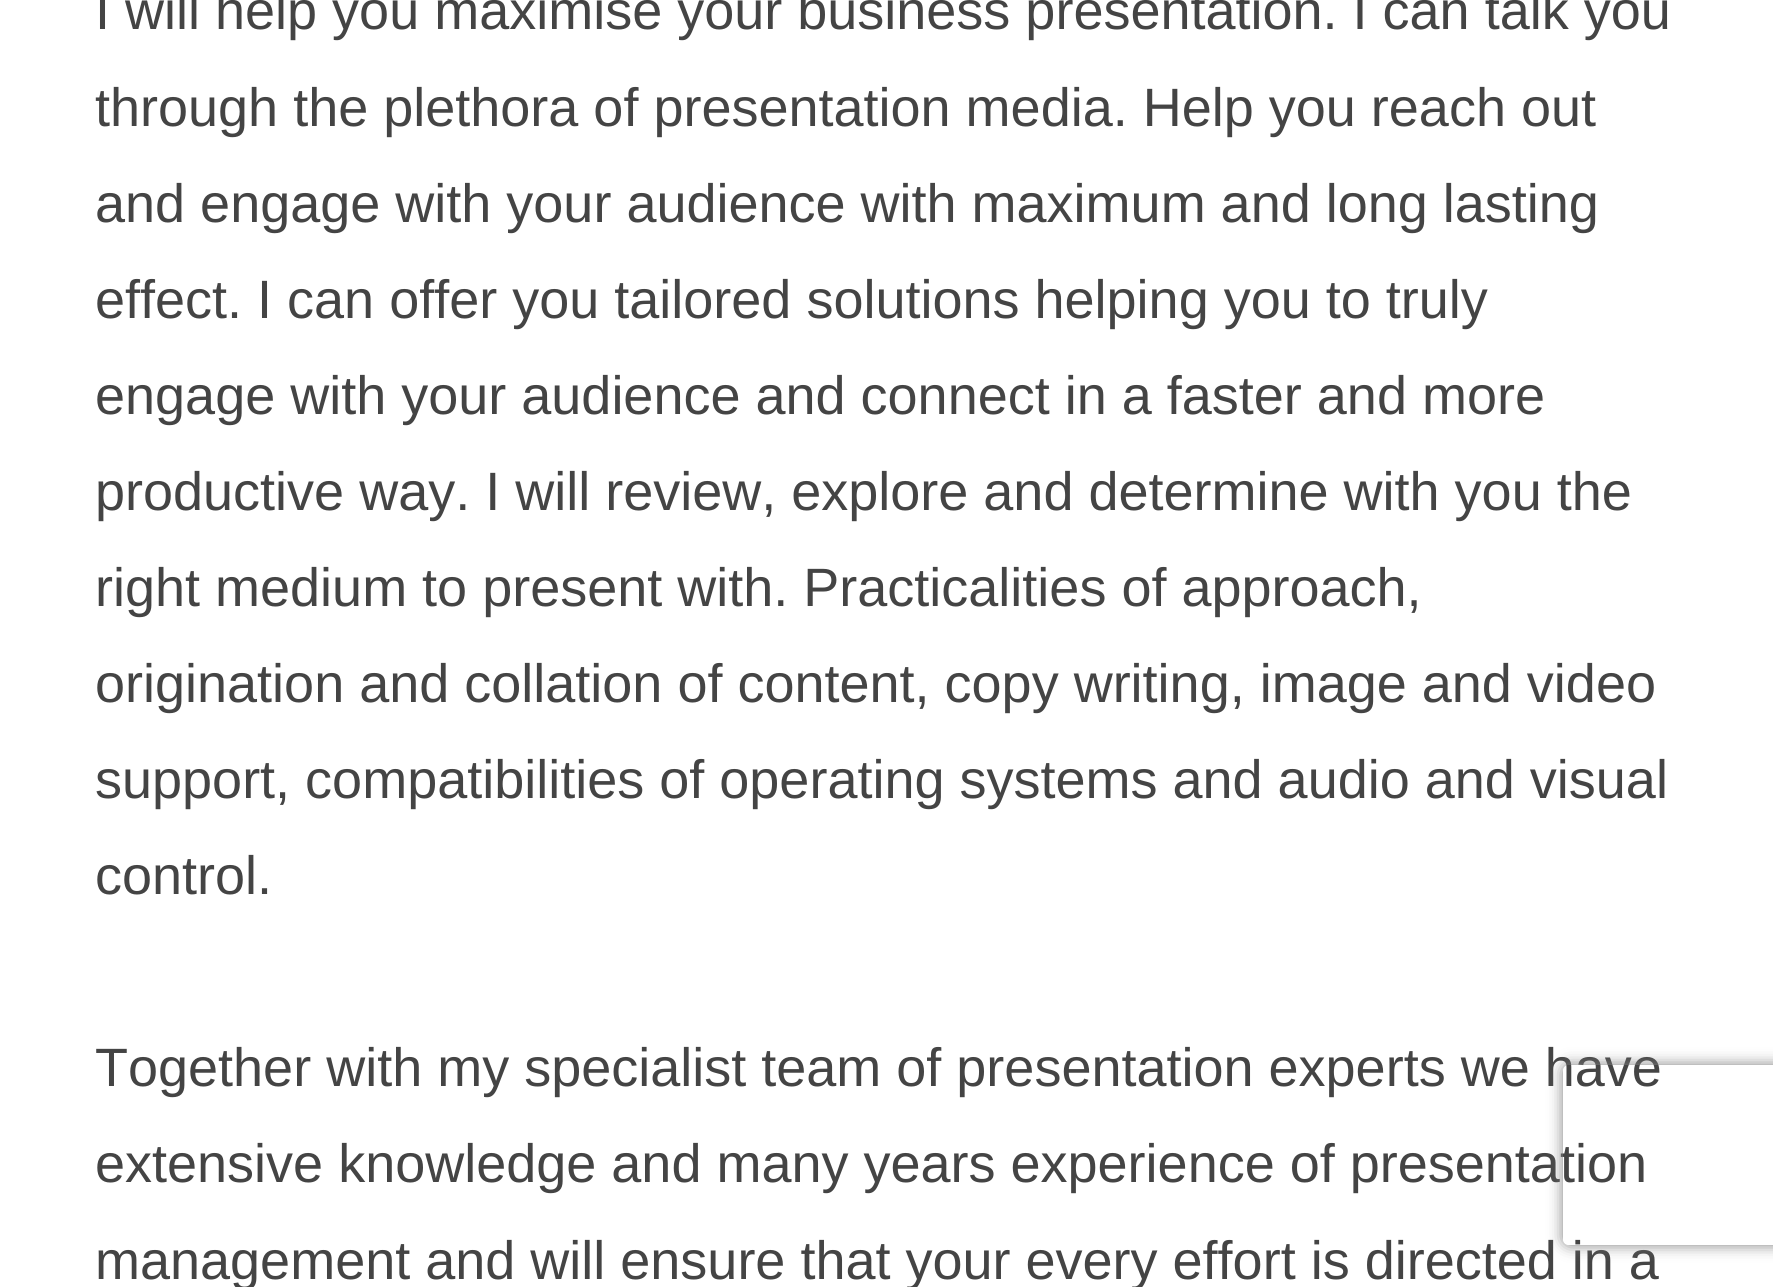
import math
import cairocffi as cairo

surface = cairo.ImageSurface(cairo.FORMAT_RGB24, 1773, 1287)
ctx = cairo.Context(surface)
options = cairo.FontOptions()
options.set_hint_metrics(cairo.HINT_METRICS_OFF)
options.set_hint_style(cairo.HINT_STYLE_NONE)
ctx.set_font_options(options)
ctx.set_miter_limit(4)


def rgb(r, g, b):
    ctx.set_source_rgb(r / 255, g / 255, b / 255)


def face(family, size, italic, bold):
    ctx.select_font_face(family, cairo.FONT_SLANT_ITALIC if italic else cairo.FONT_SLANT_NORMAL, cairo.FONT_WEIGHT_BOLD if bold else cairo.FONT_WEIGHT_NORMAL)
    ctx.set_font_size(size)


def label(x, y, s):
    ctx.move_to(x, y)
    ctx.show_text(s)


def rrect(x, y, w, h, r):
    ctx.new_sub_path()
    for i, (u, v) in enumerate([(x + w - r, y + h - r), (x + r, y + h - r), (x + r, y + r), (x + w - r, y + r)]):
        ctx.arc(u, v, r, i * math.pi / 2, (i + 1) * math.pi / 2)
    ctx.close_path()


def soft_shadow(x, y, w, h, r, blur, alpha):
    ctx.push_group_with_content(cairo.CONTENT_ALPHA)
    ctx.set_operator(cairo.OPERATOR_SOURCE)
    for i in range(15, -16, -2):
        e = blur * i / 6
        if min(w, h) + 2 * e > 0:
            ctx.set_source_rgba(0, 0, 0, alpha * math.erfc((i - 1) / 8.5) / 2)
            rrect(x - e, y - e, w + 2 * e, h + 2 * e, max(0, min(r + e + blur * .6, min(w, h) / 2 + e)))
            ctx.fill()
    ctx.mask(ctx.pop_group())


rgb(255, 255, 255)
ctx.paint()
face('Liberation Sans', 54, 0, 0)
rgb(68, 68, 68)
label(95, 29, 'I will help you maximise your business presentation. I can talk you')
label(95, 126, 'through the plethora of presentation media. Help you reach out')
label(95, 222, 'and engage with your audience with maximum and long lasting')
label(95, 318, 'effect. I can offer you tailored solutions helping you to truly')
label(95, 414, 'engage with your audience and connect in a faster and more')
label(95, 510, 'productive way. I will review, explore and determine with you the')
label(95, 606, 'right medium to present with. Practicalities of approach,')
label(95, 702, 'origination and collation of content, copy writing, image and video')
label(95, 798, 'support, compatibilities of operating systems and audio and visual')
label(95, 894, 'control.')
label(95, 1086, 'Together with my specialist team of presentation experts we have')
label(95, 1182, 'extensive knowledge and many years experience of presentation')
label(95, 1279, 'management and will ensure that your every effort is directed in a')
ctx.save()
ctx.set_fill_rule(cairo.FILL_RULE_EVEN_ODD)
ctx.new_path()
ctx.move_to(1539, 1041)
ctx.line_to(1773, 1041)
ctx.line_to(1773, 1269)
ctx.line_to(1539, 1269)
ctx.close_path()
ctx.move_to(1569, 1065)
ctx.line_to(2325, 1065)
ctx.curve_to(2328.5, 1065, 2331, 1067.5, 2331, 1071)
ctx.line_to(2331, 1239)
ctx.curve_to(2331, 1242.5, 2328.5, 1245, 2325, 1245)
ctx.line_to(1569, 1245)
ctx.curve_to(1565.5, 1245, 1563, 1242.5, 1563, 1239)
ctx.line_to(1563, 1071)
ctx.curve_to(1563, 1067.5, 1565.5, 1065, 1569, 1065)
ctx.close_path()
ctx.clip()
rgb(128, 128, 128)
soft_shadow(1563, 1065, 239, 180, 6, 7.5, 1)
ctx.restore()
surface.write_to_png('render.png')
